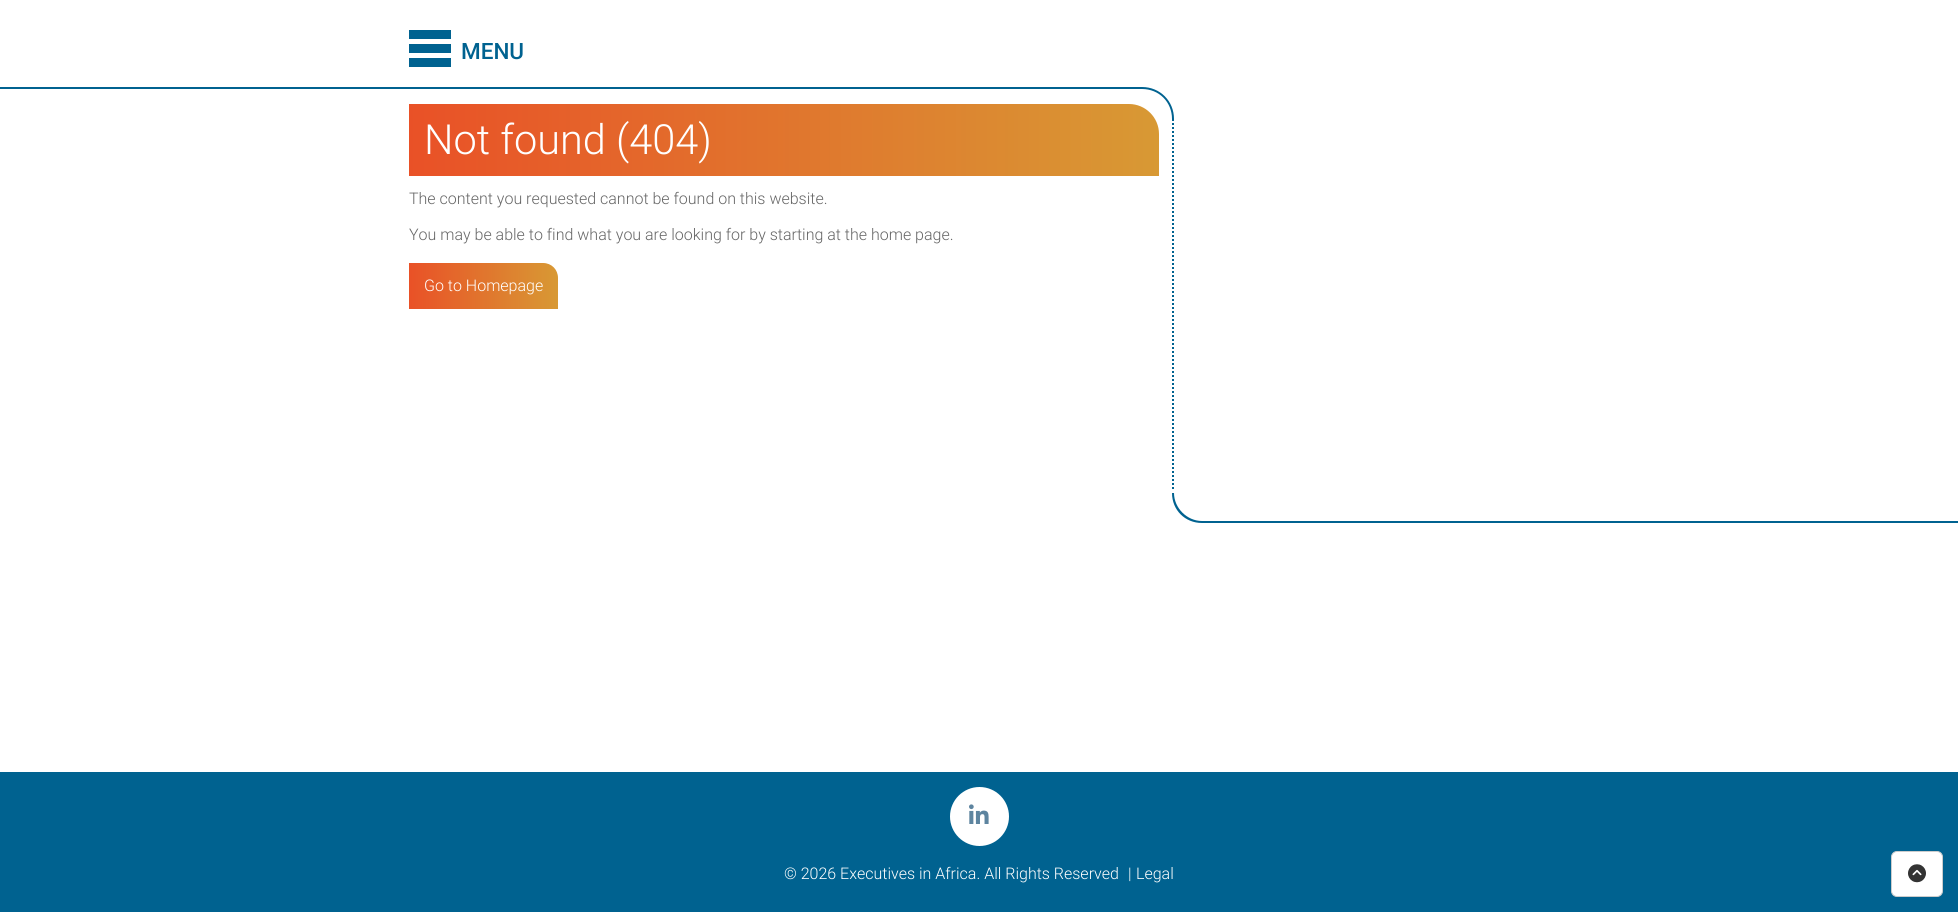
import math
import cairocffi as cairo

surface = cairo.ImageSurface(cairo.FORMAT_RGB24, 1958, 912)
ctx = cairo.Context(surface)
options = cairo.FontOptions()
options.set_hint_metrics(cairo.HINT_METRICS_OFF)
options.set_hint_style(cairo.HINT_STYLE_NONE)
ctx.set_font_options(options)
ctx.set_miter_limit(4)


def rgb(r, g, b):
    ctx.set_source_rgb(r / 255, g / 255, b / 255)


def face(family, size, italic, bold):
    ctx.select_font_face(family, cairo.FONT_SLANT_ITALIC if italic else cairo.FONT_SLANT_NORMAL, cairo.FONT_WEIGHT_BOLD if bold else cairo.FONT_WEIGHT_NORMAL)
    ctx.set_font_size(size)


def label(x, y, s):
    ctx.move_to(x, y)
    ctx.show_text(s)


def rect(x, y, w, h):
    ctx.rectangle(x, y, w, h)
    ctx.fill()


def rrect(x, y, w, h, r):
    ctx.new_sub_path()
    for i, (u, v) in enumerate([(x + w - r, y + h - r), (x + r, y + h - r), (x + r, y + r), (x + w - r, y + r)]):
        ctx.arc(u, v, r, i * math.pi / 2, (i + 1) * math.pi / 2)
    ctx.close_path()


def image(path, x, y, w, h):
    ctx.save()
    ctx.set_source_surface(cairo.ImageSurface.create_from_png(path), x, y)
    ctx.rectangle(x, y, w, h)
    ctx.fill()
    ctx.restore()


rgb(255, 255, 255)
ctx.paint()
rgb(0, 98, 144)
rect(409, 30, 42, 9)
rect(409, 44, 42, 9)
rect(409, 58, 42, 9)
face('Roboto Medium', 22.5, 0, 0)
label(461, 59, 'MENU')
ctx.set_fill_rule(cairo.FILL_RULE_EVEN_ODD)
ctx.new_path()
ctx.move_to(-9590, 87)
ctx.line_to(1142, 87)
ctx.curve_to(1160, 87, 1174, 101, 1174, 119)
ctx.line_to(-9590, 119)
ctx.close_path()
ctx.move_to(-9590, 89)
ctx.line_to(1142, 89)
ctx.curve_to(1159, 89, 1172, 102, 1172, 119)
ctx.line_to(-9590, 119)
ctx.close_path()
ctx.fill()
gradient = cairo.LinearGradient(409, 140, 1159, 140)
gradient.add_color_stop_rgba(0, 0.914, 0.318, 0.153, 1)
gradient.add_color_stop_rgba(1, 0.847, 0.6, 0.204, 1)
ctx.set_source(gradient)
ctx.new_path()
ctx.move_to(409, 104)
ctx.line_to(1129, 104)
ctx.curve_to(1145.5, 104, 1159, 117.5, 1159, 134)
ctx.line_to(1159, 176)
ctx.line_to(409, 176)
ctx.close_path()
ctx.fill()
face('Roboto Light', 41.5, 0, 0)
rgb(255, 255, 255)
label(424, 154, 'Not found (404)')
face('Roboto Light', 16, 0, 0)
rgb(102, 102, 102)
label(409, 204, 'The content you requested cannot be found on this website.')
label(409, 240, 'You may be able to find what you are looking for by starting at the home page.')
gradient = cairo.LinearGradient(409, 286, 558, 286)
gradient.add_color_stop_rgba(0, 0.914, 0.318, 0.153, 1)
gradient.add_color_stop_rgba(1, 0.847, 0.6, 0.204, 1)
ctx.set_source(gradient)
ctx.new_path()
ctx.move_to(409, 263)
ctx.line_to(543, 263)
ctx.curve_to(551.5, 263, 558, 269.5, 558, 278)
ctx.line_to(558, 309)
ctx.line_to(409, 309)
ctx.close_path()
ctx.fill()
rgb(255, 255, 255)
label(424, 291, 'Go to Homepage')
ctx.new_path()
ctx.move_to(1173, 119)
ctx.line_to(1173, 491)
rgb(0, 98, 144)
ctx.set_dash([2, 2])
ctx.stroke()
ctx.new_path()
ctx.move_to(1172, 493)
ctx.line_to(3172, 493)
ctx.line_to(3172, 523)
ctx.line_to(1202, 523)
ctx.curve_to(1185, 523, 1172, 510, 1172, 493)
ctx.close_path()
ctx.move_to(1174, 493)
ctx.line_to(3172, 493)
ctx.line_to(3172, 521)
ctx.line_to(1202, 521)
ctx.curve_to(1187, 521, 1174, 508, 1174, 493)
ctx.close_path()
ctx.fill()
rect(0, 772, 1958, 140)
rgb(255, 255, 255)
ctx.arc(979.5, 816.5, 29.5, 0, 2 * math.pi)
ctx.fill()
image('image0.png', 969, 804, 20, 20)
label(784, 879, '© 2026 Executives in Africa. All Rights Reserved')
label(1128, 879, '|')
label(1136, 879, 'Legal')
rrect(1891.5, 851.5, 51, 45, 5.5)
ctx.fill_preserve()
rgb(204, 204, 204)
ctx.set_line_width(1)
ctx.set_dash([])
ctx.stroke()
image('image1.png', 1908, 864, 18, 19)
surface.write_to_png('render.png')
